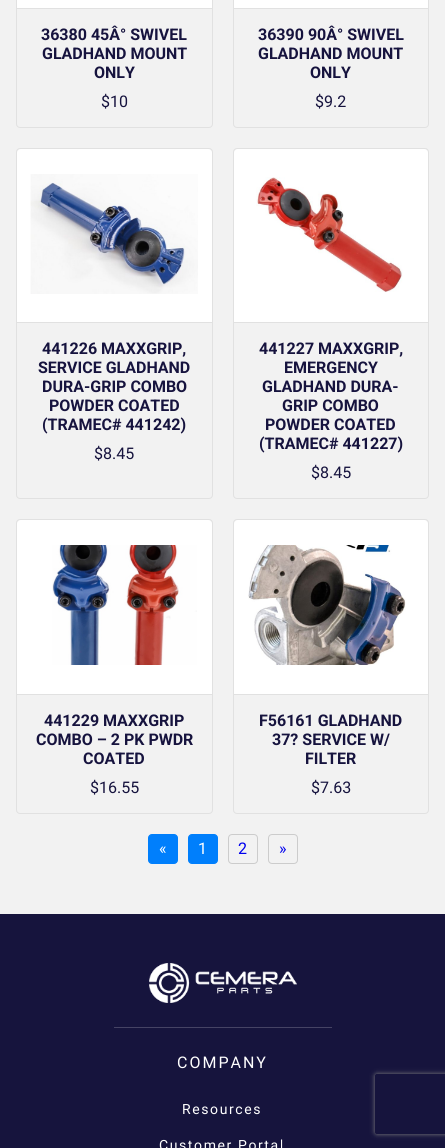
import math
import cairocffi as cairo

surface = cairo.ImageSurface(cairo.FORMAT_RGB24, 445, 1148)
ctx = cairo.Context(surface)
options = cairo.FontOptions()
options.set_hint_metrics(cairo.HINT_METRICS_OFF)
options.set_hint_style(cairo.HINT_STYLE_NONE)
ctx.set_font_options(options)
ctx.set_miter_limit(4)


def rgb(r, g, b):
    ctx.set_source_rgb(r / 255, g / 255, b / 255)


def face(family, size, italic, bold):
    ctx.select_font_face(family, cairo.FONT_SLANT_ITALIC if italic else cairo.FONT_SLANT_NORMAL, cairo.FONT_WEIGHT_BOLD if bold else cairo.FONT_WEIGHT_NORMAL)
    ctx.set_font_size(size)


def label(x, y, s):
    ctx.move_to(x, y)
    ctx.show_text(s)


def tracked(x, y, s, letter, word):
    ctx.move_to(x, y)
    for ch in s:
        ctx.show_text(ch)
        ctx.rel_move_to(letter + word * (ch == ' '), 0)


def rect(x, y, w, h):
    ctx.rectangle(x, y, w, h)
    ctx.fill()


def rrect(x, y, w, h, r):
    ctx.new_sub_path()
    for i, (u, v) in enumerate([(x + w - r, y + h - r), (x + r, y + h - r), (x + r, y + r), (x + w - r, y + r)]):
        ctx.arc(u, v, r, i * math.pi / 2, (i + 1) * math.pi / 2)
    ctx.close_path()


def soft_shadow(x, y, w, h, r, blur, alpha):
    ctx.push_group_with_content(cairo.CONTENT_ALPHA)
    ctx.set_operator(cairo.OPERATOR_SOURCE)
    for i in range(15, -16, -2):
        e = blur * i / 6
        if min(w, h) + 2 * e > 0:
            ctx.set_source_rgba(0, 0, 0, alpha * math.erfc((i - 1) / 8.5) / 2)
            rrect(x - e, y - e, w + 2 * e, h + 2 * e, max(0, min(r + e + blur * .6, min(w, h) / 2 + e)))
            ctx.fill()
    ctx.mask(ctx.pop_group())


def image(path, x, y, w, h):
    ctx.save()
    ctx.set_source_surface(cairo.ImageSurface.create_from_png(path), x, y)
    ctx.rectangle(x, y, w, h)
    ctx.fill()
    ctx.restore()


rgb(242, 242, 242)
ctx.paint()
rrect(16.5, -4.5, 196, 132, 3.5)
rgb(225, 225, 225)
ctx.set_line_width(1)
ctx.stroke()
rgb(255, 255, 255)
rect(17, 0, 195, 8)
rgb(225, 225, 225)
rect(17, 8, 195, 1)
face('Roboto', 16, 0, 1)
rgb(22, 19, 62)
label(41, 40, '36380 45Â° SWIVEL')
label(42, 59, 'GLADHAND MOUNT')
label(94, 78, 'ONLY')
face('Roboto', 16, 0, 0)
label(101, 107, '$10')
rrect(233.5, -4.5, 195, 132, 3.5)
rgb(225, 225, 225)
ctx.stroke()
rgb(255, 255, 255)
rect(234, 0, 194, 8)
rgb(225, 225, 225)
rect(234, 8, 194, 1)
face('Roboto', 16, 0, 1)
rgb(22, 19, 62)
label(258, 40, '36390 90Â° SWIVEL')
label(258, 59, 'GLADHAND MOUNT')
label(310, 78, 'ONLY')
face('Roboto', 16, 0, 0)
label(315, 107, '$9.2')
rrect(16.5, 148.5, 196, 350, 3.5)
rgb(225, 225, 225)
ctx.stroke()
rgb(255, 255, 255)
ctx.new_path()
ctx.move_to(21, 149)
ctx.line_to(208, 149)
ctx.curve_to(210, 149, 212, 151, 212, 153)
ctx.line_to(212, 323)
ctx.line_to(17, 323)
ctx.line_to(17, 153)
ctx.curve_to(17, 151, 19, 149, 21, 149)
ctx.close_path()
ctx.fill()
rgb(225, 225, 225)
rect(17, 322, 195, 1)
image('image0.png', 30, 174, 168, 120)
face('Roboto', 16, 0, 1)
rgb(22, 19, 62)
label(42, 354, '441226 MAXXGRIP,')
label(38, 373, 'SERVICE GLADHAND')
label(42, 392, 'DURA-GRIP COMBO')
label(49, 411, 'POWDER COATED')
label(42, 430, '(TRAMEC# 441242)')
face('Roboto', 16, 0, 0)
label(94, 459, '$8.45')
rrect(233.5, 148.5, 195, 350, 3.5)
rgb(225, 225, 225)
ctx.stroke()
rgb(255, 255, 255)
ctx.new_path()
ctx.move_to(238, 149)
ctx.line_to(424, 149)
ctx.curve_to(426, 149, 428, 151, 428, 153)
ctx.line_to(428, 323)
ctx.line_to(234, 323)
ctx.line_to(234, 153)
ctx.curve_to(234, 151, 236, 149, 238, 149)
ctx.close_path()
ctx.fill()
rgb(225, 225, 225)
rect(234, 322, 194, 1)
image('image1.png', 256, 177, 147, 115)
face('Roboto', 16, 0, 1)
rgb(22, 19, 62)
label(259, 354, '441227 MAXXGRIP,')
label(284, 373, 'EMERGENCY')
label(262, 392, 'GLADHAND DURA-')
label(282, 411, 'GRIP COMBO')
label(265, 430, 'POWDER COATED')
label(259, 449, '(TRAMEC# 441227)')
face('Roboto', 16, 0, 0)
label(311, 478, '$8.45')
rrect(16.5, 519.5, 196, 294, 3.5)
rgb(225, 225, 225)
ctx.stroke()
rgb(255, 255, 255)
ctx.new_path()
ctx.move_to(21, 520)
ctx.line_to(208, 520)
ctx.curve_to(210, 520, 212, 522, 212, 524)
ctx.line_to(212, 695)
ctx.line_to(17, 695)
ctx.line_to(17, 524)
ctx.curve_to(17, 522, 19, 520, 21, 520)
ctx.close_path()
ctx.fill()
rgb(225, 225, 225)
rect(17, 694, 195, 1)
image('image2.png', 52, 545, 145, 120)
face('Roboto', 16, 0, 1)
rgb(22, 19, 62)
label(44, 726, '441229 MAXXGRIP')
label(36, 745, 'COMBO – 2 PK PWDR')
label(83, 764, 'COATED')
face('Roboto', 16, 0, 0)
label(90, 793, '$16.55')
rrect(233.5, 519.5, 195, 294, 3.5)
rgb(225, 225, 225)
ctx.stroke()
rgb(255, 255, 255)
ctx.new_path()
ctx.move_to(238, 520)
ctx.line_to(424, 520)
ctx.curve_to(426, 520, 428, 522, 428, 524)
ctx.line_to(428, 695)
ctx.line_to(234, 695)
ctx.line_to(234, 524)
ctx.curve_to(234, 522, 236, 520, 238, 520)
ctx.close_path()
ctx.fill()
rgb(225, 225, 225)
rect(234, 694, 194, 1)
image('image3.png', 248, 545, 158, 120)
face('Roboto', 16, 0, 1)
rgb(22, 19, 62)
label(259, 726, 'F56161 GLADHAND')
label(272, 745, '37? SERVICE W/')
label(305, 764, 'FILTER')
face('Roboto', 16, 0, 0)
label(311, 793, '$7.63')
rgb(0, 127, 252)
rrect(148.5, 834.5, 29, 29, 3.5)
ctx.fill_preserve()
ctx.stroke()
rgb(255, 255, 255)
label(159, 854, '«')
rgb(0, 127, 252)
rrect(188.5, 834.5, 29, 29, 3.5)
ctx.fill_preserve()
ctx.stroke()
rgb(255, 255, 255)
label(198, 854, '1')
rrect(228.5, 834.5, 29, 29, 3.5)
rgb(204, 204, 204)
ctx.stroke()
rgb(0, 0, 238)
label(238, 854, '2')
rrect(268.5, 834.5, 29, 29, 3.5)
rgb(204, 204, 204)
ctx.stroke()
rgb(0, 0, 238)
label(279, 854, '»')
rgb(22, 20, 61)
rect(0, 914, 445, 234)
image('image4.png', 149, 963, 148, 40)
rgb(69, 67, 100)
rect(114, 1027, 218, 1)
rgb(255, 255, 255)
tracked(177, 1068, 'COMPANY', 2, 0)
face('Roboto', 14, 0, 0)
tracked(182, 1114, 'Resources', 1.6, 0)
tracked(159, 1150, 'Customer Portal', 1.6, 0)
ctx.save()
ctx.set_fill_rule(cairo.FILL_RULE_EVEN_ODD)
ctx.new_path()
ctx.move_to(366, 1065)
ctx.line_to(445, 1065)
ctx.line_to(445, 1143)
ctx.line_to(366, 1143)
ctx.close_path()
ctx.move_to(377, 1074)
ctx.line_to(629, 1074)
ctx.curve_to(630, 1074, 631, 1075, 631, 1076)
ctx.line_to(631, 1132)
ctx.curve_to(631, 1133, 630, 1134, 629, 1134)
ctx.line_to(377, 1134)
ctx.curve_to(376, 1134, 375, 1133, 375, 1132)
ctx.line_to(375, 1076)
ctx.curve_to(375, 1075, 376, 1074, 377, 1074)
ctx.close_path()
ctx.clip()
rgb(128, 128, 128)
soft_shadow(375, 1074, 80, 60, 2, 2.5, 1)
ctx.restore()
surface.write_to_png('render.png')
